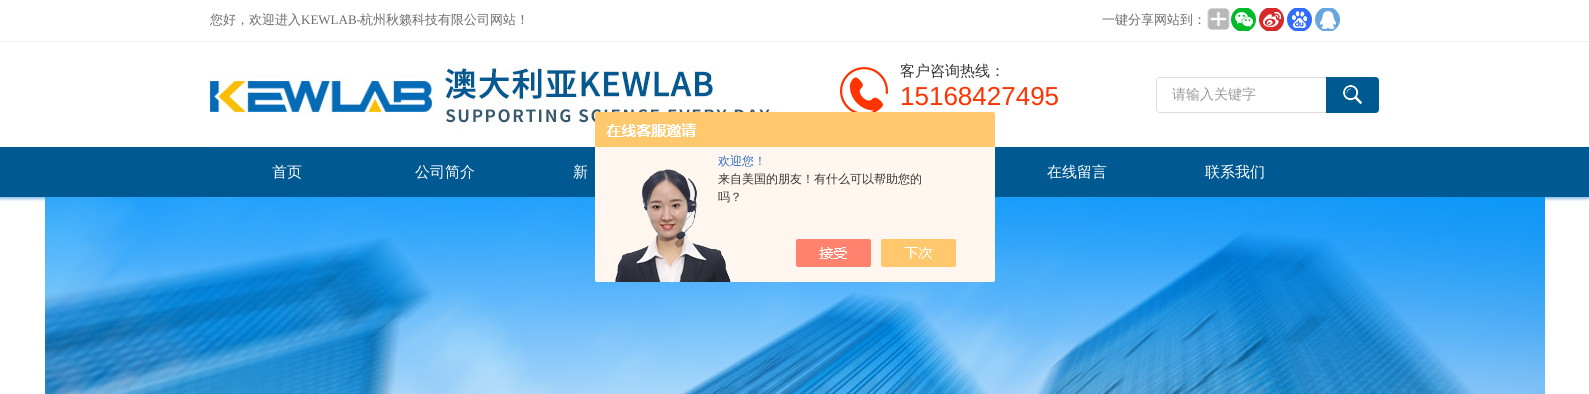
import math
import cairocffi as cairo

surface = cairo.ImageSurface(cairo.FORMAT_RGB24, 1589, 394)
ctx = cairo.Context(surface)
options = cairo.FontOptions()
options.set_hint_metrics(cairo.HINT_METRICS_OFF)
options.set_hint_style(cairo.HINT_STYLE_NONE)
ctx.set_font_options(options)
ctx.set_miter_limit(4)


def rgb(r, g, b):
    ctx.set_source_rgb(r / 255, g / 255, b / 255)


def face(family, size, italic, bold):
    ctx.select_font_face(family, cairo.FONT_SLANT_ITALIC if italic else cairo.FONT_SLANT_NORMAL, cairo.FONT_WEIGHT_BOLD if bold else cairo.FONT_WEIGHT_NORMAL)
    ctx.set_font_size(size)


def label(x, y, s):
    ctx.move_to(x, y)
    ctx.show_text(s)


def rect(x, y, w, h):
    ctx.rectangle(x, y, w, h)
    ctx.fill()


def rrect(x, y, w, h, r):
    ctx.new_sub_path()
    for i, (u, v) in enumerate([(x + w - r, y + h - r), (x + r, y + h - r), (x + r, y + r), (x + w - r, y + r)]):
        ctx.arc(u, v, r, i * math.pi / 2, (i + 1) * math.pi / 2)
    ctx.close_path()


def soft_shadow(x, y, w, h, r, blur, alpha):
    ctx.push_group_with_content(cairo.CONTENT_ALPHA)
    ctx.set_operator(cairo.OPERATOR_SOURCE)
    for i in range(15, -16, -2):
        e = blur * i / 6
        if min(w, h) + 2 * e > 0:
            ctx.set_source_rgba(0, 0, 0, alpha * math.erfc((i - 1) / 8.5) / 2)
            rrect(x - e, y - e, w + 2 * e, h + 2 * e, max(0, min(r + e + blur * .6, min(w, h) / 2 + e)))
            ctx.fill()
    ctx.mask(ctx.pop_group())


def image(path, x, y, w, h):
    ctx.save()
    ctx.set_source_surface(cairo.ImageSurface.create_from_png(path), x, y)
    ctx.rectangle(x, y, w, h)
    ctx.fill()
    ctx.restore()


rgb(255, 255, 255)
ctx.paint()
rgb(241, 241, 241)
rect(0, 41, 1589, 1)
face('WenQuanYi Zen Hei Medium', 13, 0, 0)
rgb(108, 108, 108)
label(210, 24, '您好，欢迎进入')
face('Liberation Serif', 13, 0, 0)
label(301, 24, 'KEWLAB-')
face('WenQuanYi Zen Hei Medium', 13, 0, 0)
label(360, 24, '杭州秋籁科技有限公司网站！')
label(1102, 24, '一键分享网站到：')
image('image0.png', 1207, 8, 23, 22)
image('image1.png', 1231, 8, 25, 23)
image('image2.png', 1259, 8, 25, 23)
image('image3.png', 1287, 8, 25, 23)
image('image4.png', 1315, 8, 25, 23)
rgb(137, 188, 235)
soft_shadow(0, 149, 1589, 50, 0, 1.5, 1)
image('image5.png', 210, 66, 600, 81)
image('image6.png', 840, 67, 48, 45)
face('WenQuanYi Zen Hei Medium', 15, 0, 0)
rgb(51, 51, 51)
label(900, 76, '客户咨询热线：')
face('Liberation Sans', 26, 0, 0)
rgb(255, 51, 0)
label(900, 105, '15168427495')
rgb(221, 221, 221)
ctx.set_fill_rule(cairo.FILL_RULE_EVEN_ODD)
ctx.new_path()
ctx.move_to(1160, 77)
ctx.line_to(1326, 77)
ctx.line_to(1326, 113)
ctx.line_to(1160, 113)
ctx.curve_to(1158, 113, 1156, 111, 1156, 109)
ctx.line_to(1156, 81)
ctx.curve_to(1156, 79, 1158, 77, 1160, 77)
ctx.close_path()
ctx.move_to(1160, 78)
ctx.line_to(1326, 78)
ctx.line_to(1326, 112)
ctx.line_to(1160, 112)
ctx.curve_to(1158, 112, 1157, 111, 1157, 109)
ctx.line_to(1157, 81)
ctx.curve_to(1157, 79, 1158, 78, 1160, 78)
ctx.close_path()
ctx.fill()
face('WenQuanYi Zen Hei Medium', 14, 0, 0)
rgb(153, 153, 153)
label(1172, 99, '请输入关键字')
image('image7.png', 1326, 77, 53, 36)
rgb(0, 89, 145)
rect(0, 147, 1589, 50)
image('image9.png', 45, 197, 1500, 197)
image('image8.png', 595, 112, 400, 170)
face('WenQuanYi Zen Hei Medium', 12, 0, 0)
rgb(46, 110, 198)
label(718, 165, '欢迎您！')
rgb(51, 51, 51)
label(718, 183, '来自美国的朋友！有什么可以帮助您的')
label(718, 201, '吗？')
face('WenQuanYi Zen Hei Medium', 15, 0, 0)
rgb(255, 255, 255)
label(272, 177, '首页')
label(415, 177, '公司简介')
label(573, 177, '新')
label(1047, 177, '在线留言')
label(1205, 177, '联系我们')
surface.write_to_png('render.png')
